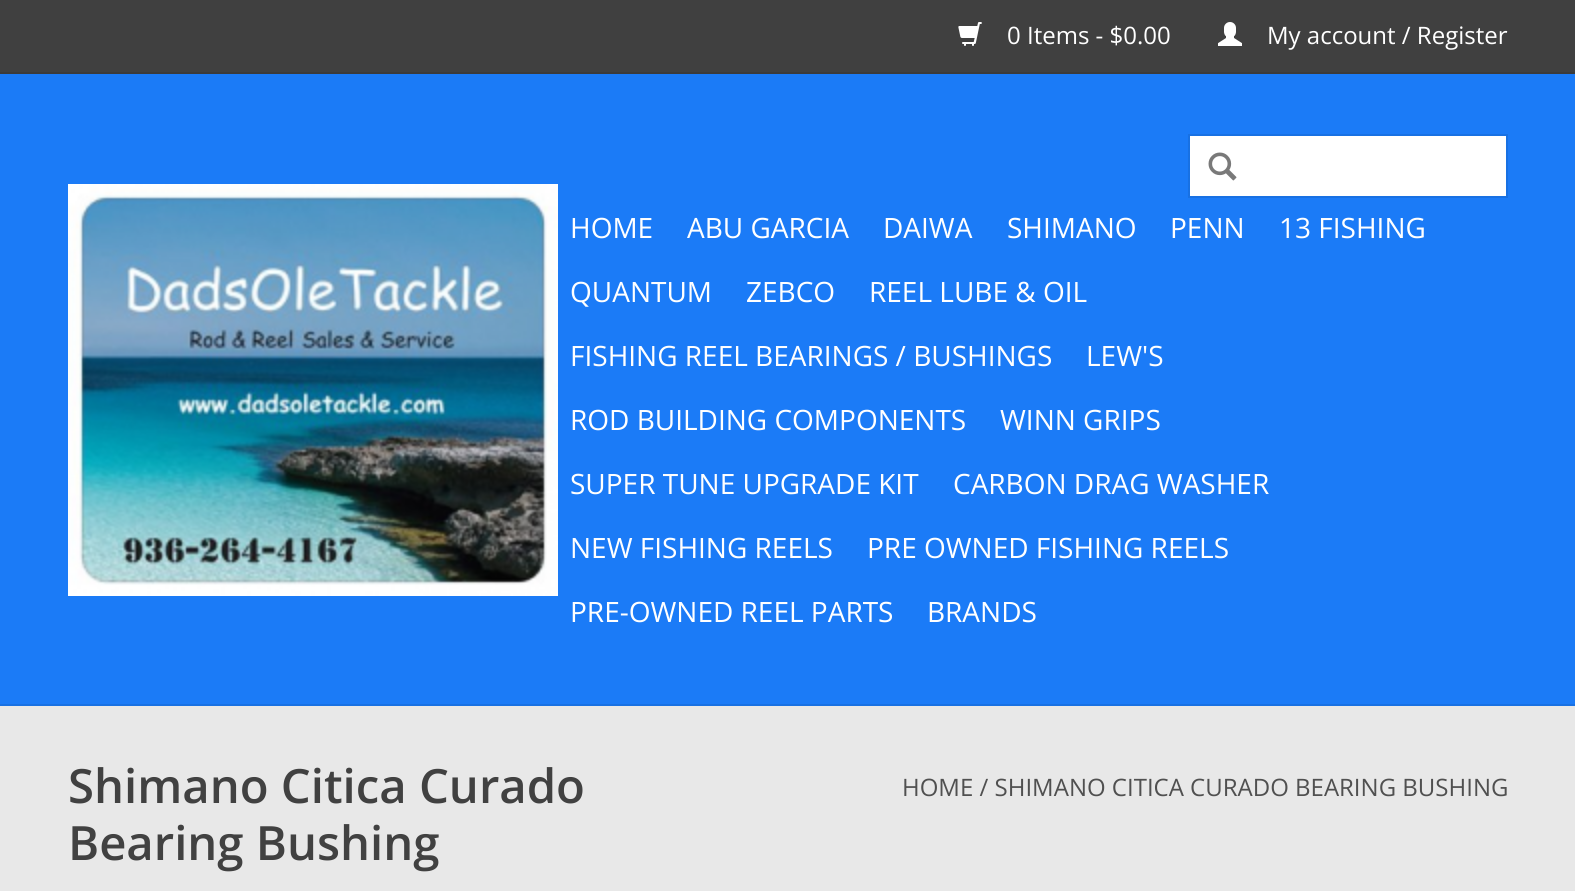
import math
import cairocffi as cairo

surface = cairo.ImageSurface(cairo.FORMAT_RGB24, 1575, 891)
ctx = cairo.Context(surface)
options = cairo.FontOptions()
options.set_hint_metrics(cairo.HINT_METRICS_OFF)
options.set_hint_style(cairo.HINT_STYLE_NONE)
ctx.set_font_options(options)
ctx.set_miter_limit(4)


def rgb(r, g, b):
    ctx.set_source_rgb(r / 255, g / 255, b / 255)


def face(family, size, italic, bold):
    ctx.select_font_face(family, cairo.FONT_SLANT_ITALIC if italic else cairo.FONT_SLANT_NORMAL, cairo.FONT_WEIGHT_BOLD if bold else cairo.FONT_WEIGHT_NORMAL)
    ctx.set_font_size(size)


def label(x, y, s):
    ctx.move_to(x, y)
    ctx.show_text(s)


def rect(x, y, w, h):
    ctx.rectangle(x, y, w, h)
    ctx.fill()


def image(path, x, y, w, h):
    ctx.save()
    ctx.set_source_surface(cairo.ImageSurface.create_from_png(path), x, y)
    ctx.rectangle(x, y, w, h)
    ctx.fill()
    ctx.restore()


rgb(232, 232, 232)
ctx.paint()
rgb(27, 123, 247)
rect(0, 74, 1575, 630)
rgb(24, 113, 227)
rect(0, 704, 1575, 2)
rgb(64, 64, 64)
rect(0, 0, 1575, 72)
rgb(59, 59, 59)
rect(0, 72, 1575, 2)
image('image0.png', 958, 22, 24, 24)
face('Open Sans', 24, 0, 0)
rgb(255, 255, 255)
label(1007, 44, '0 Items - $0.00')
image('image1.png', 1218, 22, 24, 24)
label(1267, 44, 'My account / Register')
image('image2.png', 68, 184, 490, 412)
ctx.rectangle(1189, 135, 318, 62)
ctx.fill_preserve()
rgb(24, 113, 227)
ctx.stroke()
image('image3.png', 1208, 152, 29, 29)
face('Open Sans', 28, 0, 0)
rgb(255, 255, 255)
label(570, 238, 'HOME')
label(687, 238, 'ABU GARCIA')
label(883, 238, 'DAIWA')
label(1007, 238, 'SHIMANO')
label(1170, 238, 'PENN')
label(1279, 238, '13 FISHING')
label(570, 302, 'QUANTUM')
label(746, 302, 'ZEBCO')
label(869, 302, 'REEL LUBE & OIL')
label(570, 366, 'FISHING REEL BEARINGS / BUSHINGS')
label(1086, 366, 'LEW\'S')
label(570, 430, 'ROD BUILDING COMPONENTS')
label(1000, 430, 'WINN GRIPS')
label(570, 494, 'SUPER TUNE UPGRADE KIT')
label(953, 494, 'CARBON DRAG WASHER')
label(570, 558, 'NEW FISHING REELS')
label(867, 558, 'PRE OWNED FISHING REELS')
label(570, 622, 'PRE-OWNED REEL PARTS')
label(927, 622, 'BRANDS')
face('Open Sans SemiBold', 47.25, 0, 0)
rgb(65, 65, 65)
label(68, 803, 'Shimano Citica Curado')
label(68, 860, 'Bearing Bushing')
face('Open Sans', 24, 0, 0)
rgb(80, 80, 80)
label(902, 796, 'HOME / SHIMANO CITICA CURADO BEARING BUSHING')
surface.write_to_png('render.png')
